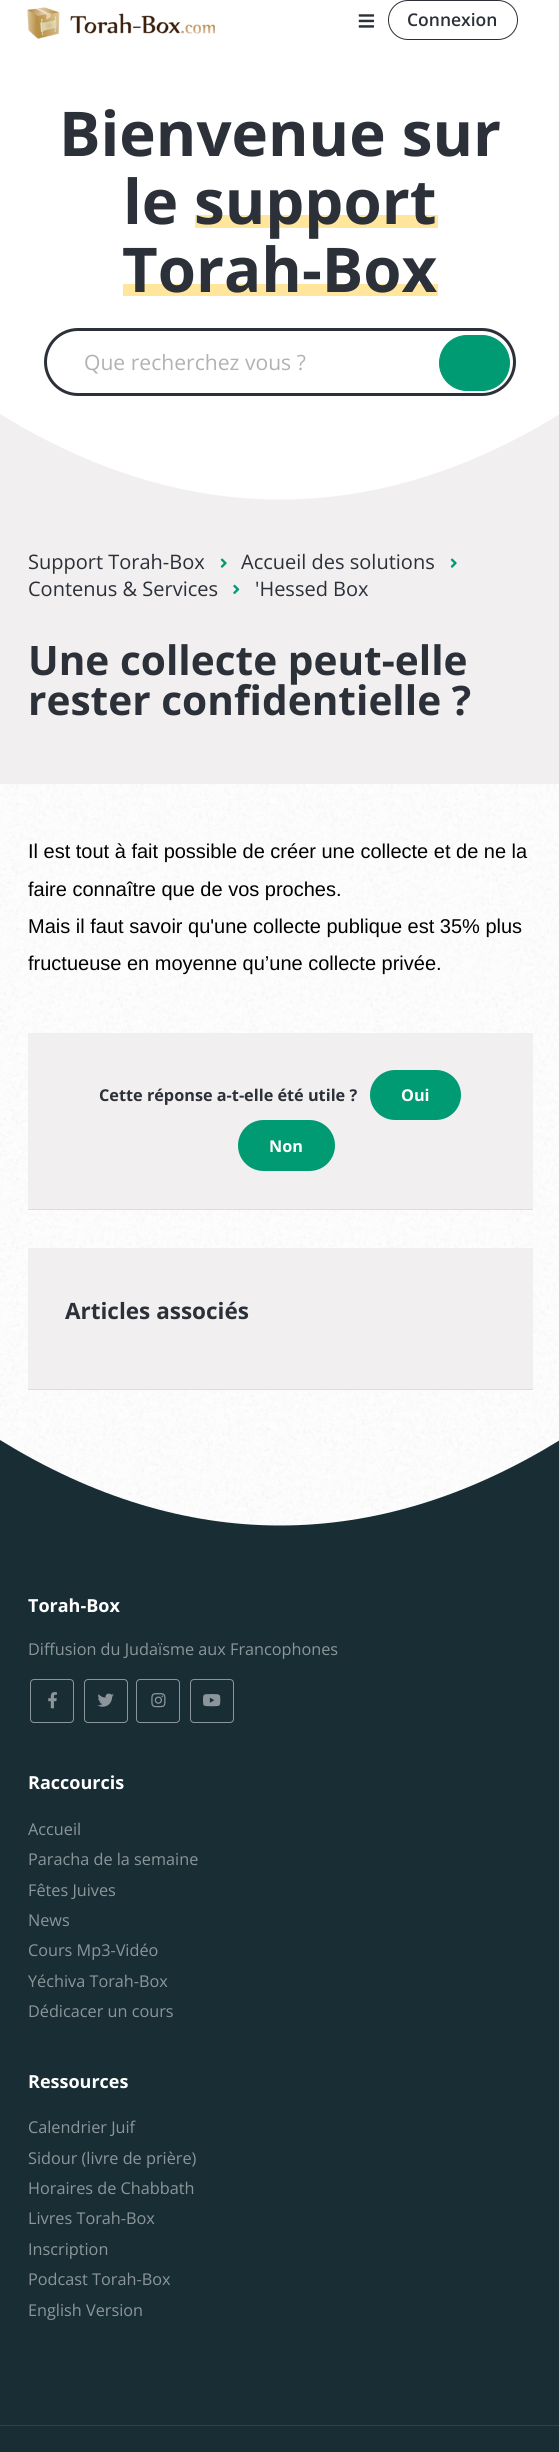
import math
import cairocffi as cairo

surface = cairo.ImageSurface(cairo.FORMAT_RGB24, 559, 2452)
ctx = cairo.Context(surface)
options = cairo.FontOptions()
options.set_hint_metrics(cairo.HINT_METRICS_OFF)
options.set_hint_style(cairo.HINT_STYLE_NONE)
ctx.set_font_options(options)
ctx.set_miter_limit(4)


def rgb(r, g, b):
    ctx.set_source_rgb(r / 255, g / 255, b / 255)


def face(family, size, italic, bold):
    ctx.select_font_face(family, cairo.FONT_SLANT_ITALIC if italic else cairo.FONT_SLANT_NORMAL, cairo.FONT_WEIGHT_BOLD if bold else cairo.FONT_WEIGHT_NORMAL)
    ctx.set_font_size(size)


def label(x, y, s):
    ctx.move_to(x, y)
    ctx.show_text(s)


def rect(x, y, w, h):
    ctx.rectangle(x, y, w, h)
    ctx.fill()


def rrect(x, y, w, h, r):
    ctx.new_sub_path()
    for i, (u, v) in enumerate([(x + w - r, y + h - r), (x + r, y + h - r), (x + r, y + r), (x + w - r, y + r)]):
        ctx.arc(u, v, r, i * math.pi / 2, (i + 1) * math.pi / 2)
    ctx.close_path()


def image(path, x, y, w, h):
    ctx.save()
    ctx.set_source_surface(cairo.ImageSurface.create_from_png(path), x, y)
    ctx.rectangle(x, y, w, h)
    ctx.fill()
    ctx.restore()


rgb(255, 255, 255)
ctx.paint()
image('image0.png', 0, 784, 559, 742)
image('image1.png', 27, 7, 188, 32)
image('image2.png', 358, 14, 17, 14)
rrect(388.5, 0.5, 129, 39, 19.5)
rgb(44, 48, 56)
ctx.set_line_width(1)
ctx.stroke()
face('Open Sans SemiBold', 17.5, 0, 0)
label(407, 26, 'Connexion')
face('Open Sans', 61.75, 0, 1)
label(59, 156, 'Bienvenue sur')
label(123, 224, 'le')
rgb(255, 230, 156)
rect(195, 215, 243, 13)
rgb(44, 48, 56)
label(194, 224, 'support')
rgb(255, 230, 156)
rect(123, 284, 315, 12)
rgb(44, 48, 56)
label(122, 292, 'Torah-Box')
rrect(45.5, 329.5, 469, 65, 32.5)
ctx.set_line_width(3)
ctx.stroke()
face('Open Sans', 21.1, 0, 0)
rgb(178, 178, 178)
label(84, 370, 'Que recherchez vous ?')
rgb(0, 155, 114)
rrect(439.5, 335.5, 70, 55, 27.5)
ctx.fill_preserve()
ctx.set_line_width(1)
ctx.stroke()
rgb(241, 239, 239)
ctx.new_path()
ctx.move_to(0, 414)
ctx.curve_to(185, 528, 375, 528, 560, 414)
ctx.line_to(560, 501)
ctx.line_to(0, 501)
ctx.close_path()
ctx.fill()
rect(0, 501, 559, 283)
face('Open Sans', 20, 0, 0)
rgb(44, 48, 56)
label(28, 569, 'Support Torah-Box')
image('image3.png', 220, 558, 7, 10)
label(241, 569, 'Accueil des solutions')
image('image3.png', 450, 558, 7, 10)
label(28, 596, 'Contenus & Services')
image('image4.png', 233, 584, 7, 10)
label(255, 596, '\'Hessed Box')
face('Open Sans', 40.6, 0, 1)
label(28, 675, 'Une collecte peut-elle')
label(28, 715, 'rester confidentielle ?')
face('Liberation Sans', 20, 0, 0)
rgb(0, 0, 0)
label(28, 858, 'Il est tout à fait possible de créer une collecte et de ne la')
label(28, 896, 'faire connaître que de vos proches.')
label(28, 933, 'Mais il faut savoir qu\'une collecte publique est 35% plus')
label(28, 970, 'fructueuse en moyenne qu’une collecte privée.')
rgb(241, 239, 239)
rect(28, 1033, 505, 176)
face('Open Sans', 16.25, 0, 1)
rgb(44, 48, 56)
label(99, 1101, 'Cette réponse a-t-elle été utile ?')
rgb(0, 155, 114)
rrect(370, 1070, 91, 50, 25)
ctx.fill()
rgb(255, 255, 255)
label(401, 1101, 'Oui')
rgb(0, 155, 114)
rrect(238, 1120, 97, 51, 25.5)
ctx.fill()
rgb(255, 255, 255)
label(269, 1152, 'Non')
rgb(221, 221, 221)
rect(28, 1209, 505, 1)
rect(28, 1389, 505, 1)
rgb(241, 239, 239)
rect(28, 1248, 505, 141)
face('Open Sans', 22.5, 0, 1)
rgb(44, 48, 56)
label(65, 1319, 'Articles associés')
rgb(25, 45, 53)
ctx.new_path()
ctx.move_to(0, 1440)
ctx.curve_to(185, 1554, 375, 1554, 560, 1440)
ctx.line_to(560, 1528)
ctx.line_to(0, 1528)
ctx.close_path()
ctx.fill()
rect(0, 1528, 559, 924)
face('Open Sans', 18, 0, 1)
rgb(255, 255, 255)
label(28, 1612, 'Torah-Box')
face('Open Sans', 16.25, 0, 0)
rgb(140, 150, 154)
label(28, 1655, 'Diffusion du Judaïsme aux Francophones')
rrect(30.5, 1679.5, 43, 43, 3.5)
ctx.stroke()
image('image5.png', 48, 1692, 9, 17)
rrect(84.5, 1679.5, 43, 43, 3.5)
ctx.stroke()
image('image6.png', 97, 1693, 17, 14)
rrect(136.5, 1679.5, 43, 43, 3.5)
ctx.stroke()
image('image7.png', 151, 1693, 15, 15)
rrect(190.5, 1679.5, 43, 43, 3.5)
ctx.stroke()
image('image8.png', 203, 1694, 18, 13)
face('Open Sans', 18, 0, 1)
rgb(255, 255, 255)
label(28, 1789, 'Raccourcis')
face('Open Sans', 16.25, 0, 0)
rgb(140, 150, 154)
label(28, 1835, 'Accueil')
label(28, 1865, 'Paracha de la semaine')
label(28, 1896, 'Fêtes Juives')
label(28, 1926, 'News')
label(28, 1956, 'Cours Mp3-Vidéo')
label(28, 1987, 'Yéchiva Torah-Box')
label(28, 2017, 'Dédicacer un cours')
face('Open Sans', 18, 0, 1)
rgb(255, 255, 255)
label(28, 2088, 'Ressources')
face('Open Sans', 16.25, 0, 0)
rgb(140, 150, 154)
label(28, 2133, 'Calendrier Juif')
label(28, 2164, 'Sidour (livre de prière)')
label(28, 2194, 'Horaires de Chabbath')
label(28, 2224, 'Livres Torah-Box')
label(28, 2255, 'Inscription')
label(28, 2285, 'Podcast Torah-Box')
label(28, 2316, 'English Version')
rgb(48, 66, 73)
rect(0, 2425, 559, 1)
surface.write_to_png('render.png')
